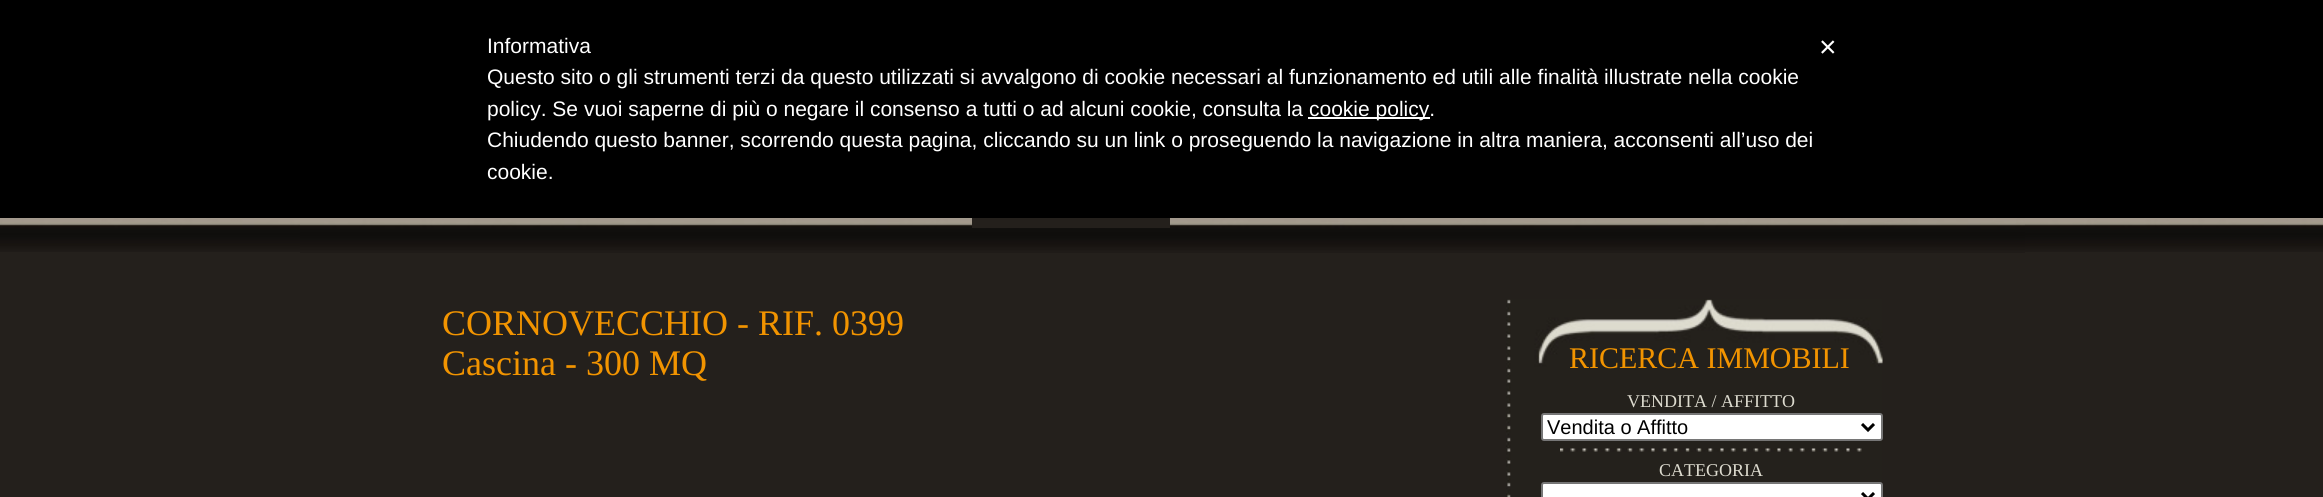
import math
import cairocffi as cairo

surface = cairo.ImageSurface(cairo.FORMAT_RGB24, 2323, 497)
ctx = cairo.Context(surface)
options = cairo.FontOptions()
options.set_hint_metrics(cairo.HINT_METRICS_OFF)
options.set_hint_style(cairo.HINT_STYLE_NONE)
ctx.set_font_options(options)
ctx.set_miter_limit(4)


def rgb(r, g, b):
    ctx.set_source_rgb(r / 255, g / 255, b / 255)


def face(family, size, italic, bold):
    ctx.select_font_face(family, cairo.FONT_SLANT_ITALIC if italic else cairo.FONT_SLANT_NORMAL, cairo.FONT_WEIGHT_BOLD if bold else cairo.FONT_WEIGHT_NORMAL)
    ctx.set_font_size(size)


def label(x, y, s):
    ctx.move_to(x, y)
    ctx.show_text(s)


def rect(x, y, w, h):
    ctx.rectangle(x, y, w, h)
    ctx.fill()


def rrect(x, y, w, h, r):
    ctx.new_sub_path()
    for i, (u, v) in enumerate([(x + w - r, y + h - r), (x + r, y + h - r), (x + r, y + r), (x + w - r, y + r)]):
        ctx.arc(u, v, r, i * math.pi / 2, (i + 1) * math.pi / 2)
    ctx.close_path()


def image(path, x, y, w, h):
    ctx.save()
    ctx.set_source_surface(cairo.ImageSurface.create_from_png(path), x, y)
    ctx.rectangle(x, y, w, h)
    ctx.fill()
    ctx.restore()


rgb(36, 32, 28)
ctx.paint()
rgb(0, 0, 0)
rect(0, 0, 2323, 218)
face('Liberation Sans', 21, 0, 0)
rgb(255, 255, 255)
label(487, 53, 'Informativa')
label(487, 84, 'Questo sito o gli strumenti terzi da questo utilizzati si avvalgono di cookie necessari al funzionamento ed utili alle finalità illustrate nella cookie')
label(487, 116, 'policy. Se vuoi saperne di più o negare il consenso a tutti o ad alcuni cookie, consulta la')
rect(1308, 117, 122, 2)
label(1309, 116, 'cookie policy.')
label(487, 147, 'Chiudendo questo banner, scorrendo questa pagina, cliccando su un link o proseguendo la navigazione in altra maniera, acconsenti all’uso dei')
label(487, 179, 'cookie.')
face('Liberation Sans', 30, 0, 0)
label(1819, 57, '×')
image('image0.png', 0, 218, 2323, 34)
image('image1.png', 300, 218, 1725, 35)
rgb(36, 32, 28)
rect(972, 218, 198, 10)
image('image2.png', 1506, 299, 5, 198)
face('Liberation Serif', 36, 0, 0)
rgb(242, 148, 0)
label(442, 335, 'CORNOVECCHIO - RIF. 0399')
label(442, 375, 'Cascina - 300 MQ')
image('image3.png', 1510, 299, 373, 198)
face('Liberation Serif', 30, 0, 0)
label(1569, 368, 'RICERCA IMMOBILI')
face('Liberation Serif', 18, 0, 0)
rgb(221, 219, 207)
label(1627, 407, 'VENDITA / AFFITTO')
rgb(255, 255, 255)
rrect(1542, 414, 340, 26, 2)
ctx.fill_preserve()
rgb(118, 118, 118)
ctx.stroke()
ctx.new_path()
ctx.move_to(1862, 424)
ctx.line_to(1868, 430)
ctx.line_to(1874, 424)
rgb(0, 0, 0)
ctx.set_line_width(3)
ctx.stroke()
face('Liberation Sans', 20, 0, 0)
label(1547, 434, 'Vendita o Affitto')
image('image4.png', 1560, 448, 302, 4)
face('Liberation Serif', 18, 0, 0)
rgb(221, 219, 207)
label(1659, 476, 'CATEGORIA')
rgb(255, 255, 255)
rrect(1542, 483, 340, 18, 2)
ctx.fill_preserve()
rgb(118, 118, 118)
ctx.set_line_width(2)
ctx.stroke()
ctx.new_path()
ctx.move_to(1862, 493)
ctx.line_to(1868, 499)
ctx.line_to(1874, 493)
rgb(0, 0, 0)
ctx.set_line_width(3)
ctx.stroke()
surface.write_to_png('render.png')
